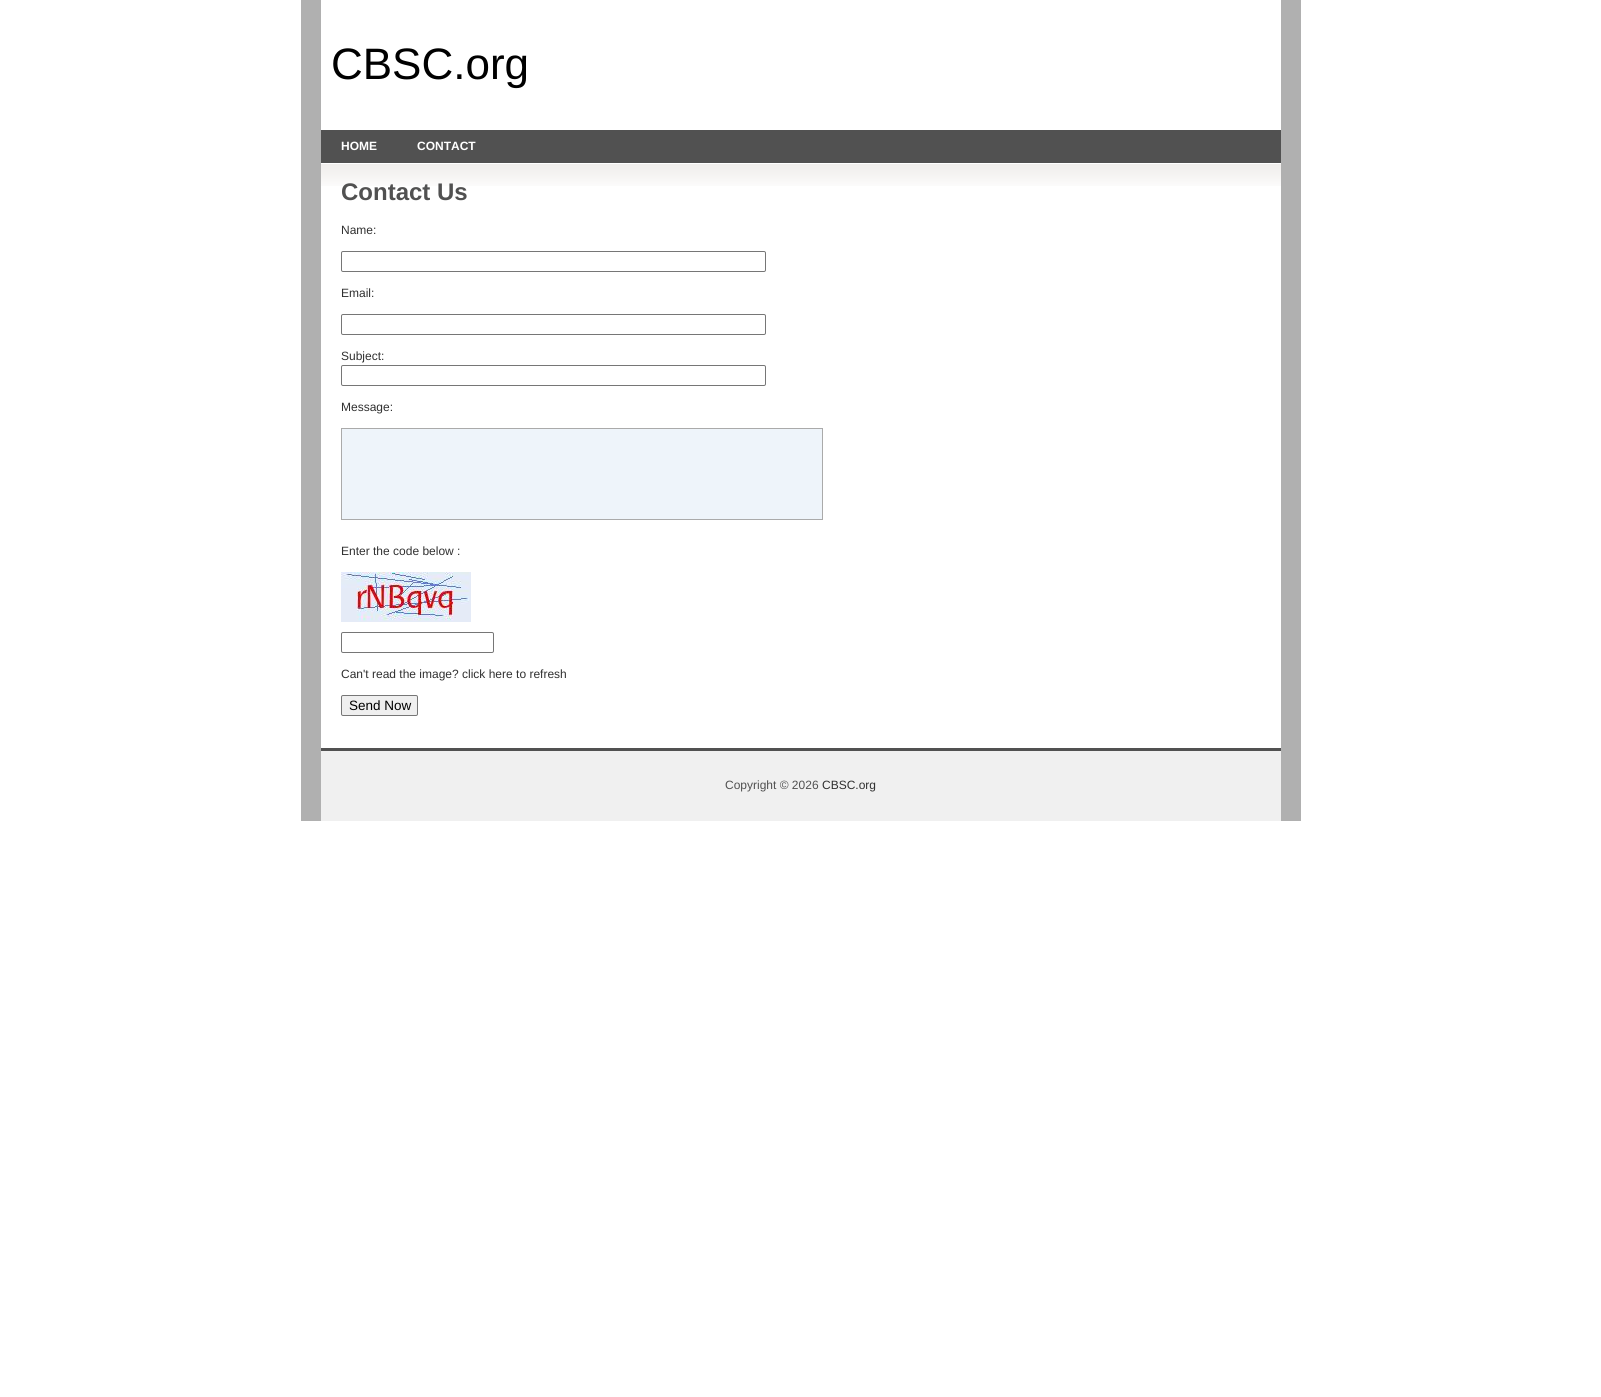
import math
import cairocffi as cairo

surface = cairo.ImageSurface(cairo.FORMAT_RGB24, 1601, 1397)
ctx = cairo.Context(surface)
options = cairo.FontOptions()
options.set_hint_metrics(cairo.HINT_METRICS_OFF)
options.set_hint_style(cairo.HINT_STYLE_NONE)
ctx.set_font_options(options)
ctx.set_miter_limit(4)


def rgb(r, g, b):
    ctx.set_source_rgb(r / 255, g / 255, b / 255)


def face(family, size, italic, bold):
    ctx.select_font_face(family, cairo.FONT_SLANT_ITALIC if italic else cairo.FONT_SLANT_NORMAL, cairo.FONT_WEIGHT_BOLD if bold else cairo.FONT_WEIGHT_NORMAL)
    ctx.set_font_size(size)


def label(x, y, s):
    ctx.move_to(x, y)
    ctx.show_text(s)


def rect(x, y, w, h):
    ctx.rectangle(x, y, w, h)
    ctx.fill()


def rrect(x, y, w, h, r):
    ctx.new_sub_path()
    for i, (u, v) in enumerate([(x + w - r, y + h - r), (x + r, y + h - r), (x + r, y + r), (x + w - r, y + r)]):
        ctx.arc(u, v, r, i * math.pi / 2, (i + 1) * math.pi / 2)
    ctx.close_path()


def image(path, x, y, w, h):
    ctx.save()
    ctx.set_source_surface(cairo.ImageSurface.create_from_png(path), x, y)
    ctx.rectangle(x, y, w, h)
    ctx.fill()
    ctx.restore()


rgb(255, 255, 255)
ctx.paint()
rgb(176, 176, 176)
rect(1281, 0, 20, 821)
rect(301, 0, 20, 821)
face('Liberation Sans', 44, 0, 0)
rgb(0, 0, 0)
label(331, 79, 'CBSC.org')
rgb(81, 81, 81)
rect(321, 130, 960, 33)
face('Liberation Sans', 12, 0, 1)
rgb(255, 255, 255)
label(341, 150, 'HOME')
label(417, 150, 'CONTACT')
image('image0.png', 321, 164, 960, 22)
face('Liberation Sans', 24, 0, 1)
rgb(81, 81, 81)
label(341, 200, 'Contact Us')
face('Liberation Sans', 12, 0, 0)
rgb(48, 48, 48)
label(341, 234, 'Name:')
rrect(341.5, 251.5, 424, 20, 1.5)
rgb(118, 118, 118)
ctx.set_line_width(1)
ctx.stroke()
rgb(48, 48, 48)
label(341, 297, 'Email:')
rrect(341.5, 314.5, 424, 20, 1.5)
rgb(118, 118, 118)
ctx.stroke()
rgb(48, 48, 48)
label(341, 360, 'Subject:')
rrect(341.5, 365.5, 424, 20, 1.5)
rgb(118, 118, 118)
ctx.stroke()
rgb(48, 48, 48)
label(341, 411, 'Message:')
rgb(238, 244, 250)
ctx.rectangle(341.5, 428.5, 481, 91)
ctx.fill_preserve()
rgb(170, 170, 170)
ctx.stroke()
rgb(48, 48, 48)
label(341, 555, 'Enter the code below :')
image('image1.png', 341, 572, 130, 50)
rrect(341.5, 632.5, 152, 20, 1.5)
rgb(118, 118, 118)
ctx.stroke()
rgb(48, 48, 48)
label(341, 678, 'Can\'t read the image? click here to refresh')
rgb(239, 239, 239)
rrect(341.5, 695.5, 76, 20, 1.5)
ctx.fill_preserve()
rgb(118, 118, 118)
ctx.stroke()
face('Liberation Sans', 13.5, 0, 0)
rgb(0, 0, 0)
label(349, 710, 'Send Now')
rgb(240, 240, 240)
rect(321, 751, 960, 70)
rgb(81, 81, 81)
rect(321, 748, 960, 3)
face('Liberation Sans', 12, 0, 0)
label(725, 789, 'Copyright © 2026')
rgb(48, 48, 48)
label(822, 789, 'CBSC.org')
surface.write_to_png('render.png')
